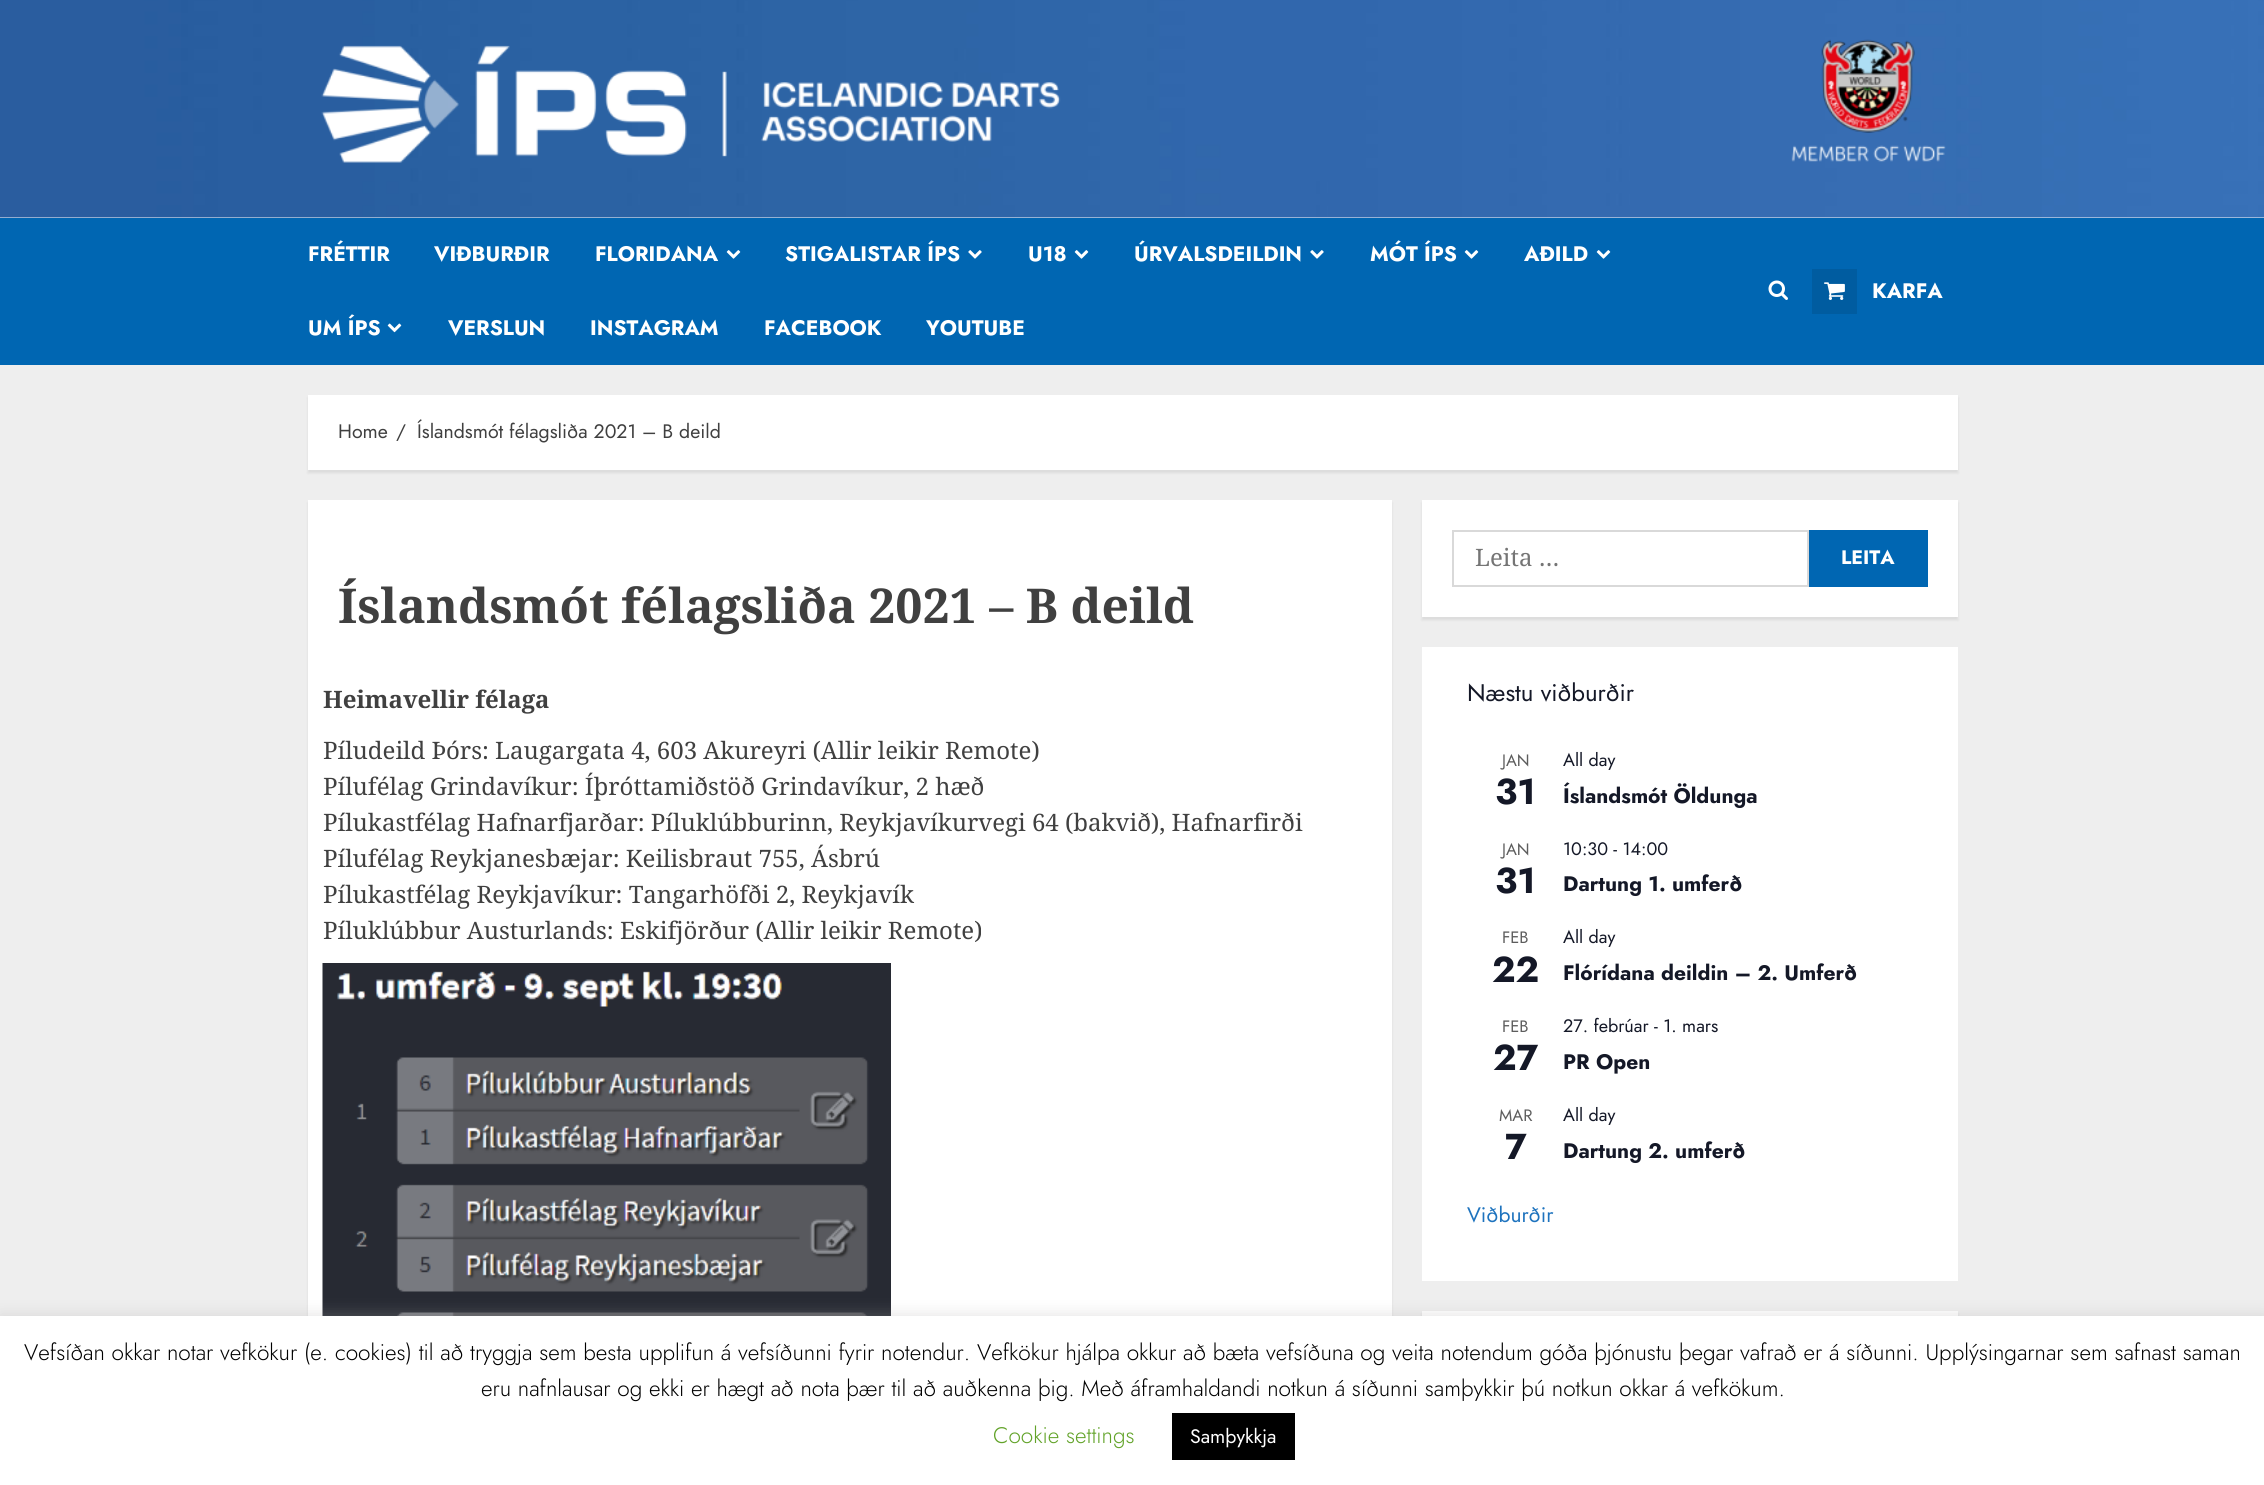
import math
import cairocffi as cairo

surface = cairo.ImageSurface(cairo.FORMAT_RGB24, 2264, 1485)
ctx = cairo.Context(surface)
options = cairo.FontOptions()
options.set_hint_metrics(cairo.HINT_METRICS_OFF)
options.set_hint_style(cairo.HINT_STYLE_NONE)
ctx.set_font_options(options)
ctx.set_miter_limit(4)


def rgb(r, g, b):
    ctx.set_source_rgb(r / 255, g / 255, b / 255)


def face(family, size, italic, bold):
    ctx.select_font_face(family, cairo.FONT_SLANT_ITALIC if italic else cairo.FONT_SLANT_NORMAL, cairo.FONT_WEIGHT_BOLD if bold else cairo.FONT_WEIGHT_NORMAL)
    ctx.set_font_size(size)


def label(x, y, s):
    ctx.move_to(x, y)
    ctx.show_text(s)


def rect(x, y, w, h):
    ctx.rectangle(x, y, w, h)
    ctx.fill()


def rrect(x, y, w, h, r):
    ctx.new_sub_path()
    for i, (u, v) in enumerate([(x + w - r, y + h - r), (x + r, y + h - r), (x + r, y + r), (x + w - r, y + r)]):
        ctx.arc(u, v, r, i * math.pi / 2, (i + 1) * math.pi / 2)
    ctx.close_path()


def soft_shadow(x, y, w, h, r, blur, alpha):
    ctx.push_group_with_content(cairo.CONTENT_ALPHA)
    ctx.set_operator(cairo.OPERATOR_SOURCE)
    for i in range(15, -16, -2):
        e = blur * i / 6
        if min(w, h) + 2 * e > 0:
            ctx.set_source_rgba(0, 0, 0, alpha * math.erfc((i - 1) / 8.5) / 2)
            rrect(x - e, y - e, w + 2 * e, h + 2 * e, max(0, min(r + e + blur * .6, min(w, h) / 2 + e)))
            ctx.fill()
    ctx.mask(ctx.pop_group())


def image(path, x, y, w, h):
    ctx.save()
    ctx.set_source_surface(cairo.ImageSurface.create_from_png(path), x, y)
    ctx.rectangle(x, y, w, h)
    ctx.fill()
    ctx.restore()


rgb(238, 238, 238)
ctx.paint()
rgb(255, 255, 255)
rect(0, 217, 2264, 1)
image('image0.png', 0, 0, 2264, 218)
image('image1.png', 321, 39, 1625, 124)
rgb(0, 102, 178)
rect(0, 218, 2264, 147)
face('Jost', 21, 0, 1)
rgb(255, 255, 255)
label(308, 261, 'FRÉTTIR')
label(434, 261, 'VIÐBURÐIR')
label(595, 261, 'FLORIDANA')
image('image2.png', 726, 250, 15, 9)
label(785, 261, 'STIGALISTAR ÍPS')
image('image3.png', 968, 250, 14, 9)
label(1028, 261, 'U18')
image('image2.png', 1074, 250, 15, 9)
label(1134, 261, 'ÚRVALSDEILDIN')
image('image3.png', 1310, 250, 14, 9)
label(1370, 261, 'MÓT ÍPS')
image('image2.png', 1464, 250, 15, 9)
label(1524, 261, 'AÐILD')
image('image2.png', 1596, 250, 15, 9)
label(308, 335, 'UM ÍPS')
image('image4.png', 387, 323, 15, 10)
label(448, 335, 'VERSLUN')
label(590, 335, 'INSTAGRAM')
label(764, 335, 'FACEBOOK')
label(926, 335, 'YOUTUBE')
image('image5.png', 1768, 280, 20, 20)
rgb(0, 92, 160)
rect(1812, 269, 45, 45)
image('image6.png', 1824, 282, 21, 18)
rgb(255, 255, 255)
label(1872, 298, 'KARFA')
rgb(0, 0, 0)
soft_shadow(308, 398, 1650, 75, 0, 1.5, 0.08)
rgb(255, 255, 255)
rect(308, 395, 1650, 75)
face('Jost', 19.5, 0, 0)
rgb(64, 64, 64)
label(338, 438, 'Home')
label(396, 438, '/')
label(417, 438, 'Íslandsmót félagsliða 2021 – B deild')
rgb(0, 0, 0)
soft_shadow(308, 503, 1084, 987, 0, 1.5, 0.08)
rgb(255, 255, 255)
rect(308, 500, 1084, 816)
face('Noto Serif', 48, 0, 1)
rgb(64, 64, 64)
label(338, 623, 'Íslandsmót félagsliða 2021 – B deild')
face('Noto Serif', 24, 0, 1)
label(323, 708, 'Heimavellir félaga')
face('Noto Serif', 24, 0, 0)
label(323, 759, 'Píludeild Þórs: Laugargata 4, 603 Akureyri (Allir leikir Remote)')
label(323, 795, 'Pílufélag Grindavíkur: Íþróttamiðstöð Grindavíkur, 2 hæð')
label(323, 831, 'Pílukastfélag Hafnarfjarðar: Píluklúbburinn, Reykjavíkurvegi 64 (bakvið), Hafnarfirði')
label(323, 867, 'Pílufélag Reykjanesbæjar: Keilisbraut 755, Ásbrú')
label(323, 903, 'Pílukastfélag Reykjavíkur: Tangarhöfði 2, Reykjavík')
label(323, 939, 'Píluklúbbur Austurlands: Eskifjörður (Allir leikir Remote)')
image('image7.png', 322, 963, 569, 353)
rgb(0, 0, 0)
soft_shadow(1422, 503, 536, 117, 0, 1.5, 0.08)
rgb(255, 255, 255)
rect(1422, 500, 536, 117)
ctx.rectangle(1453, 531, 355, 55)
rgb(217, 217, 217)
ctx.stroke()
rgb(117, 117, 117)
label(1475, 566, 'Leita …')
rgb(0, 102, 178)
rect(1809, 530, 119, 57)
face('Jost', 19.5, 0, 1)
rgb(255, 255, 255)
label(1841, 564, 'LEITA')
rect(1422, 647, 536, 634)
face('Jost', 24, 0, 0)
rgb(20, 24, 39)
label(1467, 701, 'Næstu viðburðir')
face('Jost', 16.5, 0, 0)
rgb(93, 93, 93)
label(1502, 766, 'JAN')
face('Jost', 36, 0, 1)
rgb(20, 24, 39)
label(1495, 804, '31')
face('Jost', 18, 0, 0)
label(1563, 766, 'All day')
face('Jost', 21, 0, 1)
label(1563, 803, 'Íslandsmót Öldunga')
face('Jost', 16.5, 0, 0)
rgb(93, 93, 93)
label(1502, 855, 'JAN')
face('Jost', 36, 0, 1)
rgb(20, 24, 39)
label(1495, 893, '31')
face('Jost', 18, 0, 0)
label(1563, 855, '10:30 - 14:00')
face('Jost', 21, 0, 1)
label(1563, 891, 'Dartung 1. umferð')
face('Jost', 16.5, 0, 0)
rgb(93, 93, 93)
label(1502, 943, 'FEB')
face('Jost', 36, 0, 1)
rgb(20, 24, 39)
label(1492, 982, '22')
face('Jost', 18, 0, 0)
label(1563, 943, 'All day')
face('Jost', 21, 0, 1)
label(1563, 980, 'Flórídana deildin – 2. Umferð')
face('Jost', 16.5, 0, 0)
rgb(93, 93, 93)
label(1502, 1032, 'FEB')
face('Jost', 36, 0, 1)
rgb(20, 24, 39)
label(1493, 1070, '27')
face('Jost', 18, 0, 0)
label(1563, 1032, '27. febrúar - 1. mars')
face('Jost', 21, 0, 1)
label(1563, 1069, 'PR Open')
face('Jost', 16.5, 0, 0)
rgb(93, 93, 93)
label(1499, 1121, 'MAR')
face('Jost', 36, 0, 1)
rgb(20, 24, 39)
label(1505, 1159, '7')
face('Jost', 18, 0, 0)
label(1563, 1121, 'All day')
face('Jost', 21, 0, 1)
label(1563, 1158, 'Dartung 2. umferð')
face('Jost', 21, 0, 0)
rgb(30, 115, 190)
label(1467, 1222, 'Viðburðir')
rgb(0, 0, 0)
soft_shadow(1422, 1314, 536, 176, 0, 1.5, 0.08)
rgb(255, 255, 255)
rect(1422, 1311, 536, 5)
rgb(172, 171, 171)
soft_shadow(0, 1314, 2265, 170, 0, 7.5, 0.3)
rgb(255, 255, 255)
rect(0, 1316, 2264, 169)
face('Jost Light', 22.5, 0, 0)
rgb(0, 0, 0)
label(24, 1360, 'Vefsíðan okkar notar vefkökur (e. cookies) til að tryggja sem besta upplifun á vefsíðunni fyrir notendur. Vefkökur hjálpa okkur að bæta vefsíðuna og veita notendum góða þjónustu þegar vafrað er á síðunni. Upplýsingarnar sem safnast saman')
label(481, 1396, 'eru nafnlausar og ekki er hægt að nota þær til að auðkenna þig. Með áframhaldandi notkun á síðunni samþykkir þú notkun okkar á vefkökum.')
rgb(98, 163, 41)
label(993, 1443, 'Cookie settings')
rgb(0, 0, 0)
rect(1172, 1413, 123, 47)
face('Jost', 19.5, 0, 0)
rgb(255, 255, 255)
label(1190, 1443, 'Samþykkja')
surface.write_to_png('render.png')
